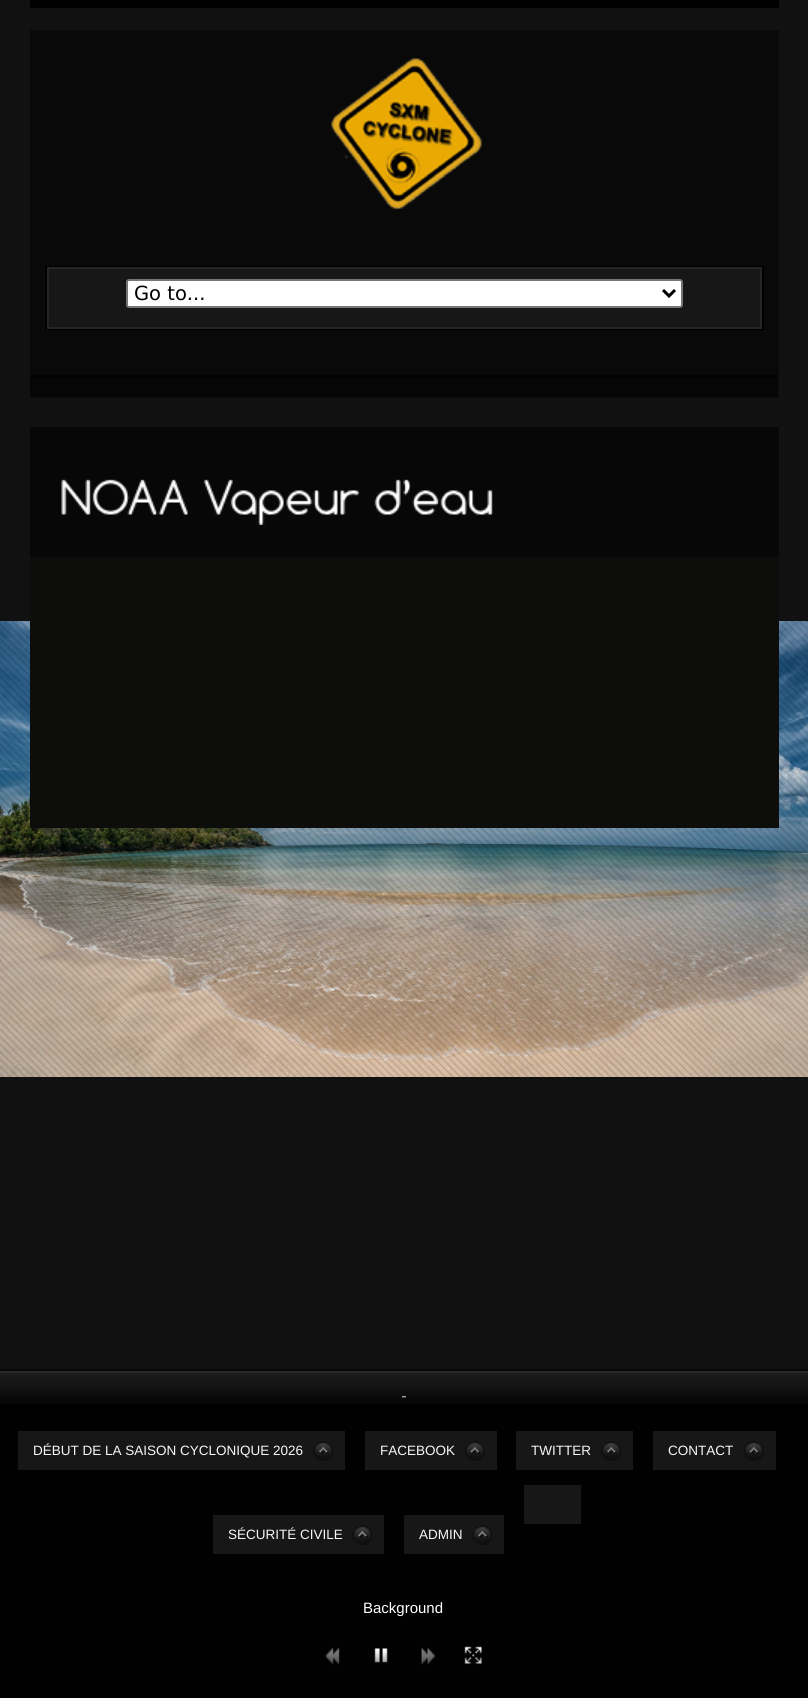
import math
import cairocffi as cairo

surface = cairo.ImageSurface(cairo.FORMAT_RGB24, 808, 1698)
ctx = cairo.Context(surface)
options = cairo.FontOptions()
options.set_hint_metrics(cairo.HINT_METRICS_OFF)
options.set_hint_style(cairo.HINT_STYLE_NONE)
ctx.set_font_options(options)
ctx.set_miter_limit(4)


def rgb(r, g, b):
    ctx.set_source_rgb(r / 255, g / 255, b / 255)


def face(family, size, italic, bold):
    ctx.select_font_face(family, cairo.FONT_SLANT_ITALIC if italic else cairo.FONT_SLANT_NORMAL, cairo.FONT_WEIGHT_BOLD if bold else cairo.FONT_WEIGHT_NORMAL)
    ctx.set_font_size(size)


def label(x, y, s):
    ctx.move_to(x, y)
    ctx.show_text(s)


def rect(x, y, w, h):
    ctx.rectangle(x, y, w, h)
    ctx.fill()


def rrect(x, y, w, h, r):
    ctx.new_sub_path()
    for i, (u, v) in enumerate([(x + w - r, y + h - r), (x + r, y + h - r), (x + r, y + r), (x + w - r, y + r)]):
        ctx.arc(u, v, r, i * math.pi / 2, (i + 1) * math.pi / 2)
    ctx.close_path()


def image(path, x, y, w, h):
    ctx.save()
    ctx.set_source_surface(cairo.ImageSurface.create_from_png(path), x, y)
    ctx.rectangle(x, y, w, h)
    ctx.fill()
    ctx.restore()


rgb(17, 17, 17)
ctx.paint()
image('image0.png', 30, 375, 749, 23)
rgb(0, 0, 0)
rect(30, 0, 749, 8)
rgb(9, 9, 9)
rect(30, 30, 749, 345)
image('image1.png', 331, 58, 151, 152)
rgb(23, 23, 23)
rect(49, 269, 711, 58)
ctx.rectangle(46, 267, 717, 62)
rgb(0, 0, 0)
ctx.stroke()
ctx.rectangle(48, 268, 713, 60)
rgb(37, 37, 37)
ctx.stroke()
rgb(255, 255, 255)
rrect(127, 280, 555, 27, 2)
ctx.fill_preserve()
rgb(118, 118, 118)
ctx.stroke()
ctx.new_path()
ctx.move_to(663, 290)
ctx.line_to(669, 296)
ctx.line_to(675, 290)
rgb(0, 0, 0)
ctx.set_line_width(3)
ctx.stroke()
face('DejaVu Sans', 19.5, 0, 0)
label(134, 300, 'Go to...')
rgb(7, 7, 7)
rect(30, 427, 749, 130)
image('image2.png', 61, 479, 127, 36)
image('image3.png', 203, 479, 157, 46)
image('image4.png', 374, 479, 119, 36)
image('image13.png', 0, 621, 808, 456)
image('image14.png', 0, 621, 808, 456)
rgb(13, 13, 12)
rect(30, 557, 749, 271)
rgb(1, 1, 1)
rect(0, 1404, 808, 294)
image('image5.png', 0, 1369, 808, 35)
face('Liberation Sans', 16, 1, 0)
rgb(187, 187, 187)
label(401, 1401, '-')
rgb(23, 23, 23)
rect(18, 1431, 327, 39)
image('image6.png', 313, 1441, 20, 20)
face('Liberation Sans', 13.5, 0, 0)
rgb(247, 247, 247)
label(33, 1455, 'DÉBUT DE LA SAISON CYCLONIQUE 2026')
rgb(23, 23, 23)
rect(365, 1431, 132, 39)
image('image7.png', 465, 1441, 20, 20)
rgb(247, 247, 247)
label(380, 1455, 'FACEBOOK')
rgb(23, 23, 23)
rect(516, 1431, 117, 39)
image('image8.png', 601, 1441, 20, 20)
rgb(247, 247, 247)
label(531, 1455, 'TWITTER')
rgb(23, 23, 23)
rect(653, 1431, 123, 39)
image('image7.png', 744, 1441, 20, 20)
rgb(247, 247, 247)
label(668, 1455, 'CONTACT')
rgb(23, 23, 23)
rect(524, 1485, 57, 39)
rect(213, 1515, 171, 39)
image('image8.png', 352, 1525, 20, 20)
rgb(247, 247, 247)
label(228, 1539, 'SÉCURITÉ CIVILE')
rgb(23, 23, 23)
rect(404, 1515, 100, 39)
image('image6.png', 472, 1525, 20, 20)
rgb(247, 247, 247)
label(419, 1539, 'ADMIN')
face('Liberation Sans', 15, 0, 0)
rgb(255, 255, 255)
label(363, 1613, 'Background')
image('image9.png', 325, 1647, 15, 18)
image('image10.png', 374, 1648, 14, 15)
image('image11.png', 421, 1647, 15, 18)
image('image12.png', 464, 1646, 18, 19)
surface.write_to_png('render.png')
